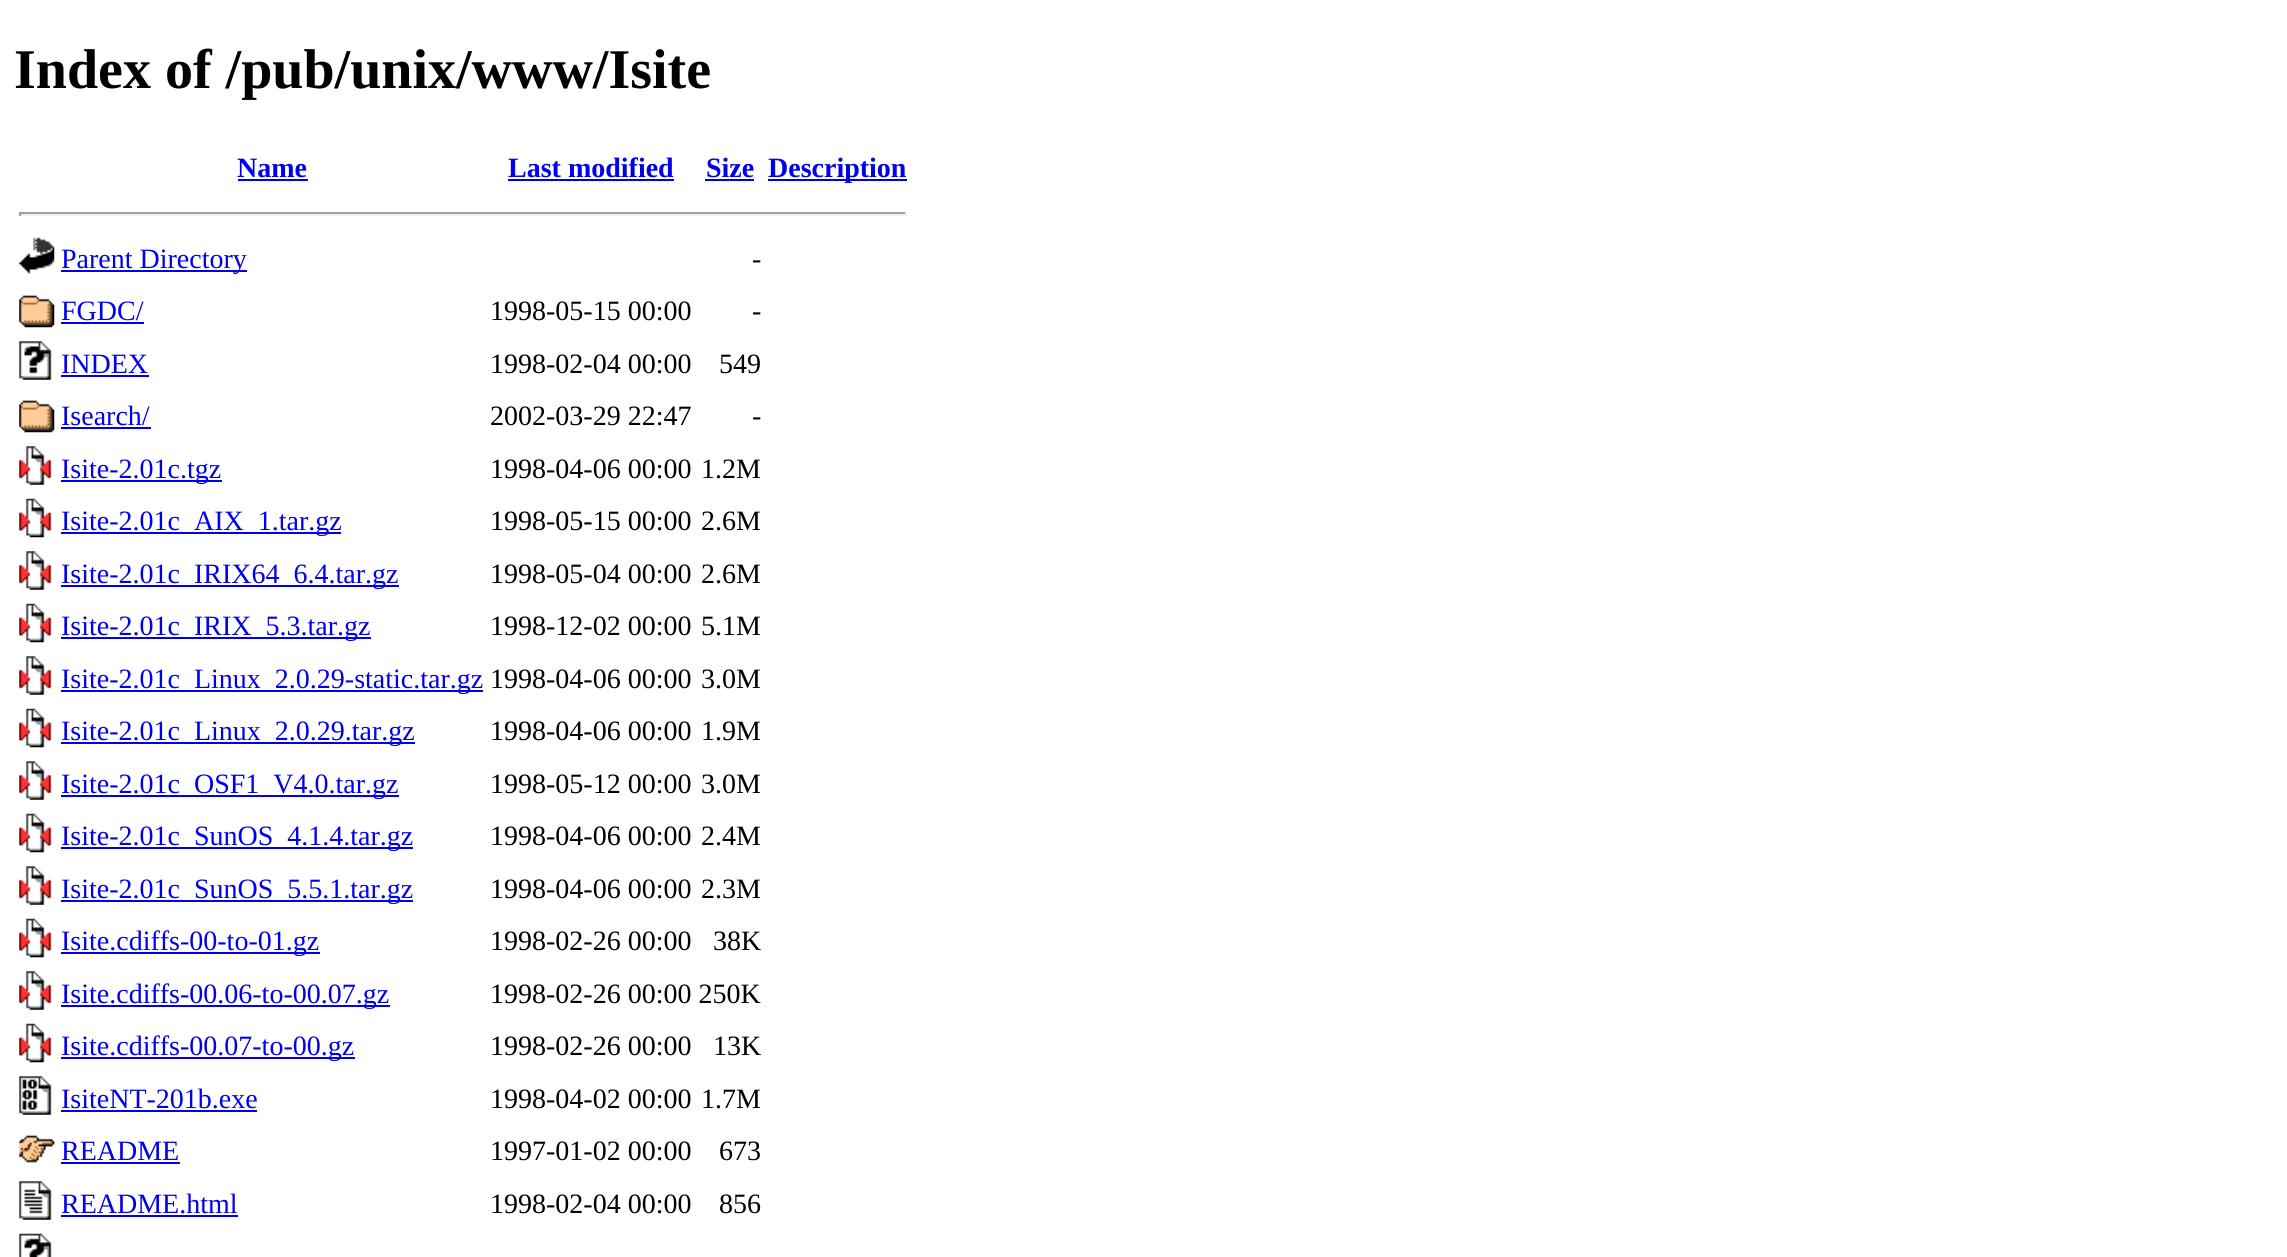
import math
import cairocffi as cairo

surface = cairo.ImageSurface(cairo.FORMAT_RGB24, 2287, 1257)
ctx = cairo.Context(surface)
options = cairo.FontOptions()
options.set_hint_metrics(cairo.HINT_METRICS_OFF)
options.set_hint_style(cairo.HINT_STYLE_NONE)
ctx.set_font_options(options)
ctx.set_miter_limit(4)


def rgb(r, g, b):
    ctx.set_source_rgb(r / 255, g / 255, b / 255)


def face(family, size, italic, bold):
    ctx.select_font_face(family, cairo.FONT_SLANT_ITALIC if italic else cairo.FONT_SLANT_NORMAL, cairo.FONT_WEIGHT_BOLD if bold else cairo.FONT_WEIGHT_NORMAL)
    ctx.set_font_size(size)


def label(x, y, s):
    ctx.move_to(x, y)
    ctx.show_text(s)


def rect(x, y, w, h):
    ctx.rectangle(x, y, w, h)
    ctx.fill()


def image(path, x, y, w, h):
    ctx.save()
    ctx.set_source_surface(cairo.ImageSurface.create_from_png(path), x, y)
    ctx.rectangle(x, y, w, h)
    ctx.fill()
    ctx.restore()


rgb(255, 255, 255)
ctx.paint()
face('Liberation Serif', 56, 0, 1)
rgb(0, 0, 0)
label(14, 88, 'Index of /pub/unix/www/Isite')
face('Liberation Serif', 28, 0, 1)
rgb(0, 0, 238)
label(237, 177, 'Name')
rect(238, 179, 70, 2)
label(508, 177, 'Last modified')
rect(508, 179, 166, 2)
label(706, 177, 'Size')
rect(705, 179, 49, 2)
rect(768, 179, 139, 2)
label(768, 177, 'Description')
rgb(159, 159, 159)
rect(19, 212, 888, 2)
rgb(238, 238, 238)
rect(905, 212, 2, 4)
rect(19, 214, 888, 2)
rgb(159, 159, 159)
rect(19, 212, 2, 4)
image('image0.png', 19, 237, 36, 37)
rgb(0, 0, 238)
rect(61, 270, 186, 2)
face('Liberation Serif', 28, 0, 0)
label(61, 268, 'Parent Directory')
rgb(0, 0, 0)
label(752, 268, '-')
image('image1.png', 19, 295, 36, 33)
rgb(0, 0, 238)
label(61, 320, 'FGDC/')
rect(61, 322, 83, 2)
rgb(0, 0, 0)
label(490, 320, '1998-05-15 00:00')
label(752, 320, '-')
image('image2.png', 19, 341, 33, 39)
rgb(0, 0, 238)
label(61, 373, 'INDEX')
rect(61, 375, 88, 2)
rgb(0, 0, 0)
label(490, 373, '1998-02-04 00:00')
label(719, 373, '549')
image('image1.png', 19, 400, 36, 33)
rgb(0, 0, 238)
label(61, 425, 'Isearch/')
rect(61, 427, 90, 2)
rgb(0, 0, 0)
label(490, 425, '2002-03-29 22:47')
label(752, 425, '-')
image('image3.png', 19, 446, 33, 39)
rgb(0, 0, 238)
rect(61, 480, 161, 2)
label(61, 478, 'Isite-2.01c.tgz')
rgb(0, 0, 0)
label(490, 478, '1998-04-06 00:00')
label(701, 478, '1.2M')
image('image4.png', 19, 498, 33, 40)
rgb(0, 0, 238)
rect(61, 532, 280, 2)
label(61, 530, 'Isite-2.01c_AIX_1.tar.gz')
rgb(0, 0, 0)
label(490, 530, '1998-05-15 00:00')
label(701, 530, '2.6M')
image('image3.png', 19, 551, 33, 39)
rgb(0, 0, 238)
rect(61, 585, 338, 2)
label(61, 583, 'Isite-2.01c_IRIX64_6.4.tar.gz')
rgb(0, 0, 0)
label(490, 583, '1998-05-04 00:00')
label(701, 583, '2.6M')
image('image4.png', 19, 603, 33, 40)
rgb(0, 0, 238)
rect(61, 637, 310, 2)
label(61, 635, 'Isite-2.01c_IRIX_5.3.tar.gz')
rgb(0, 0, 0)
label(490, 635, '1998-12-02 00:00')
label(701, 635, '5.1M')
image('image3.png', 19, 656, 33, 39)
rgb(0, 0, 238)
rect(61, 690, 422, 2)
label(61, 688, 'Isite-2.01c_Linux_2.0.29-static.tar.gz')
rgb(0, 0, 0)
label(490, 688, '1998-04-06 00:00')
label(701, 688, '3.0M')
image('image4.png', 19, 708, 33, 40)
rgb(0, 0, 238)
rect(61, 742, 354, 2)
label(61, 740, 'Isite-2.01c_Linux_2.0.29.tar.gz')
rgb(0, 0, 0)
label(490, 740, '1998-04-06 00:00')
label(701, 740, '1.9M')
image('image3.png', 19, 761, 33, 39)
rgb(0, 0, 238)
rect(61, 795, 338, 2)
label(61, 793, 'Isite-2.01c_OSF1_V4.0.tar.gz')
rgb(0, 0, 0)
label(490, 793, '1998-05-12 00:00')
label(701, 793, '3.0M')
image('image4.png', 19, 813, 33, 40)
rgb(0, 0, 238)
rect(61, 847, 352, 2)
label(61, 845, 'Isite-2.01c_SunOS_4.1.4.tar.gz')
rgb(0, 0, 0)
label(490, 845, '1998-04-06 00:00')
label(701, 845, '2.4M')
image('image3.png', 19, 866, 33, 39)
rgb(0, 0, 238)
rect(61, 900, 352, 2)
label(61, 898, 'Isite-2.01c_SunOS_5.5.1.tar.gz')
rgb(0, 0, 0)
label(490, 898, '1998-04-06 00:00')
label(701, 898, '2.3M')
image('image4.png', 19, 918, 33, 40)
rgb(0, 0, 238)
rect(61, 952, 259, 2)
label(61, 950, 'Isite.cdiffs-00-to-01.gz')
rgb(0, 0, 0)
label(490, 950, '1998-02-26 00:00')
label(713, 950, '38K')
image('image3.png', 19, 971, 33, 39)
rgb(0, 0, 238)
rect(61, 1005, 329, 2)
label(61, 1003, 'Isite.cdiffs-00.06-to-00.07.gz')
rgb(0, 0, 0)
label(490, 1003, '1998-02-26 00:00 250K')
image('image4.png', 19, 1023, 33, 40)
rgb(0, 0, 238)
rect(61, 1057, 294, 2)
label(61, 1055, 'Isite.cdiffs-00.07-to-00.gz')
rgb(0, 0, 0)
label(490, 1055, '1998-02-26 00:00')
label(713, 1055, '13K')
image('image5.png', 19, 1076, 33, 39)
rgb(0, 0, 238)
label(61, 1108, 'IsiteNT-201b.exe')
rect(61, 1110, 196, 2)
rgb(0, 0, 0)
label(490, 1108, '1998-04-02 00:00')
label(701, 1108, '1.7M')
image('image6.png', 19, 1135, 36, 28)
rgb(0, 0, 238)
label(61, 1160, 'README')
rect(61, 1162, 119, 2)
rgb(0, 0, 0)
label(490, 1160, '1997-01-02 00:00')
label(719, 1160, '673')
image('image7.png', 19, 1181, 33, 39)
rgb(0, 0, 238)
label(61, 1213, 'README.html')
rect(61, 1215, 177, 2)
rgb(0, 0, 0)
label(490, 1213, '1998-02-04 00:00')
label(719, 1213, '856')
image('image8.png', 19, 1233, 33, 24)
surface.write_to_png('render.png')
